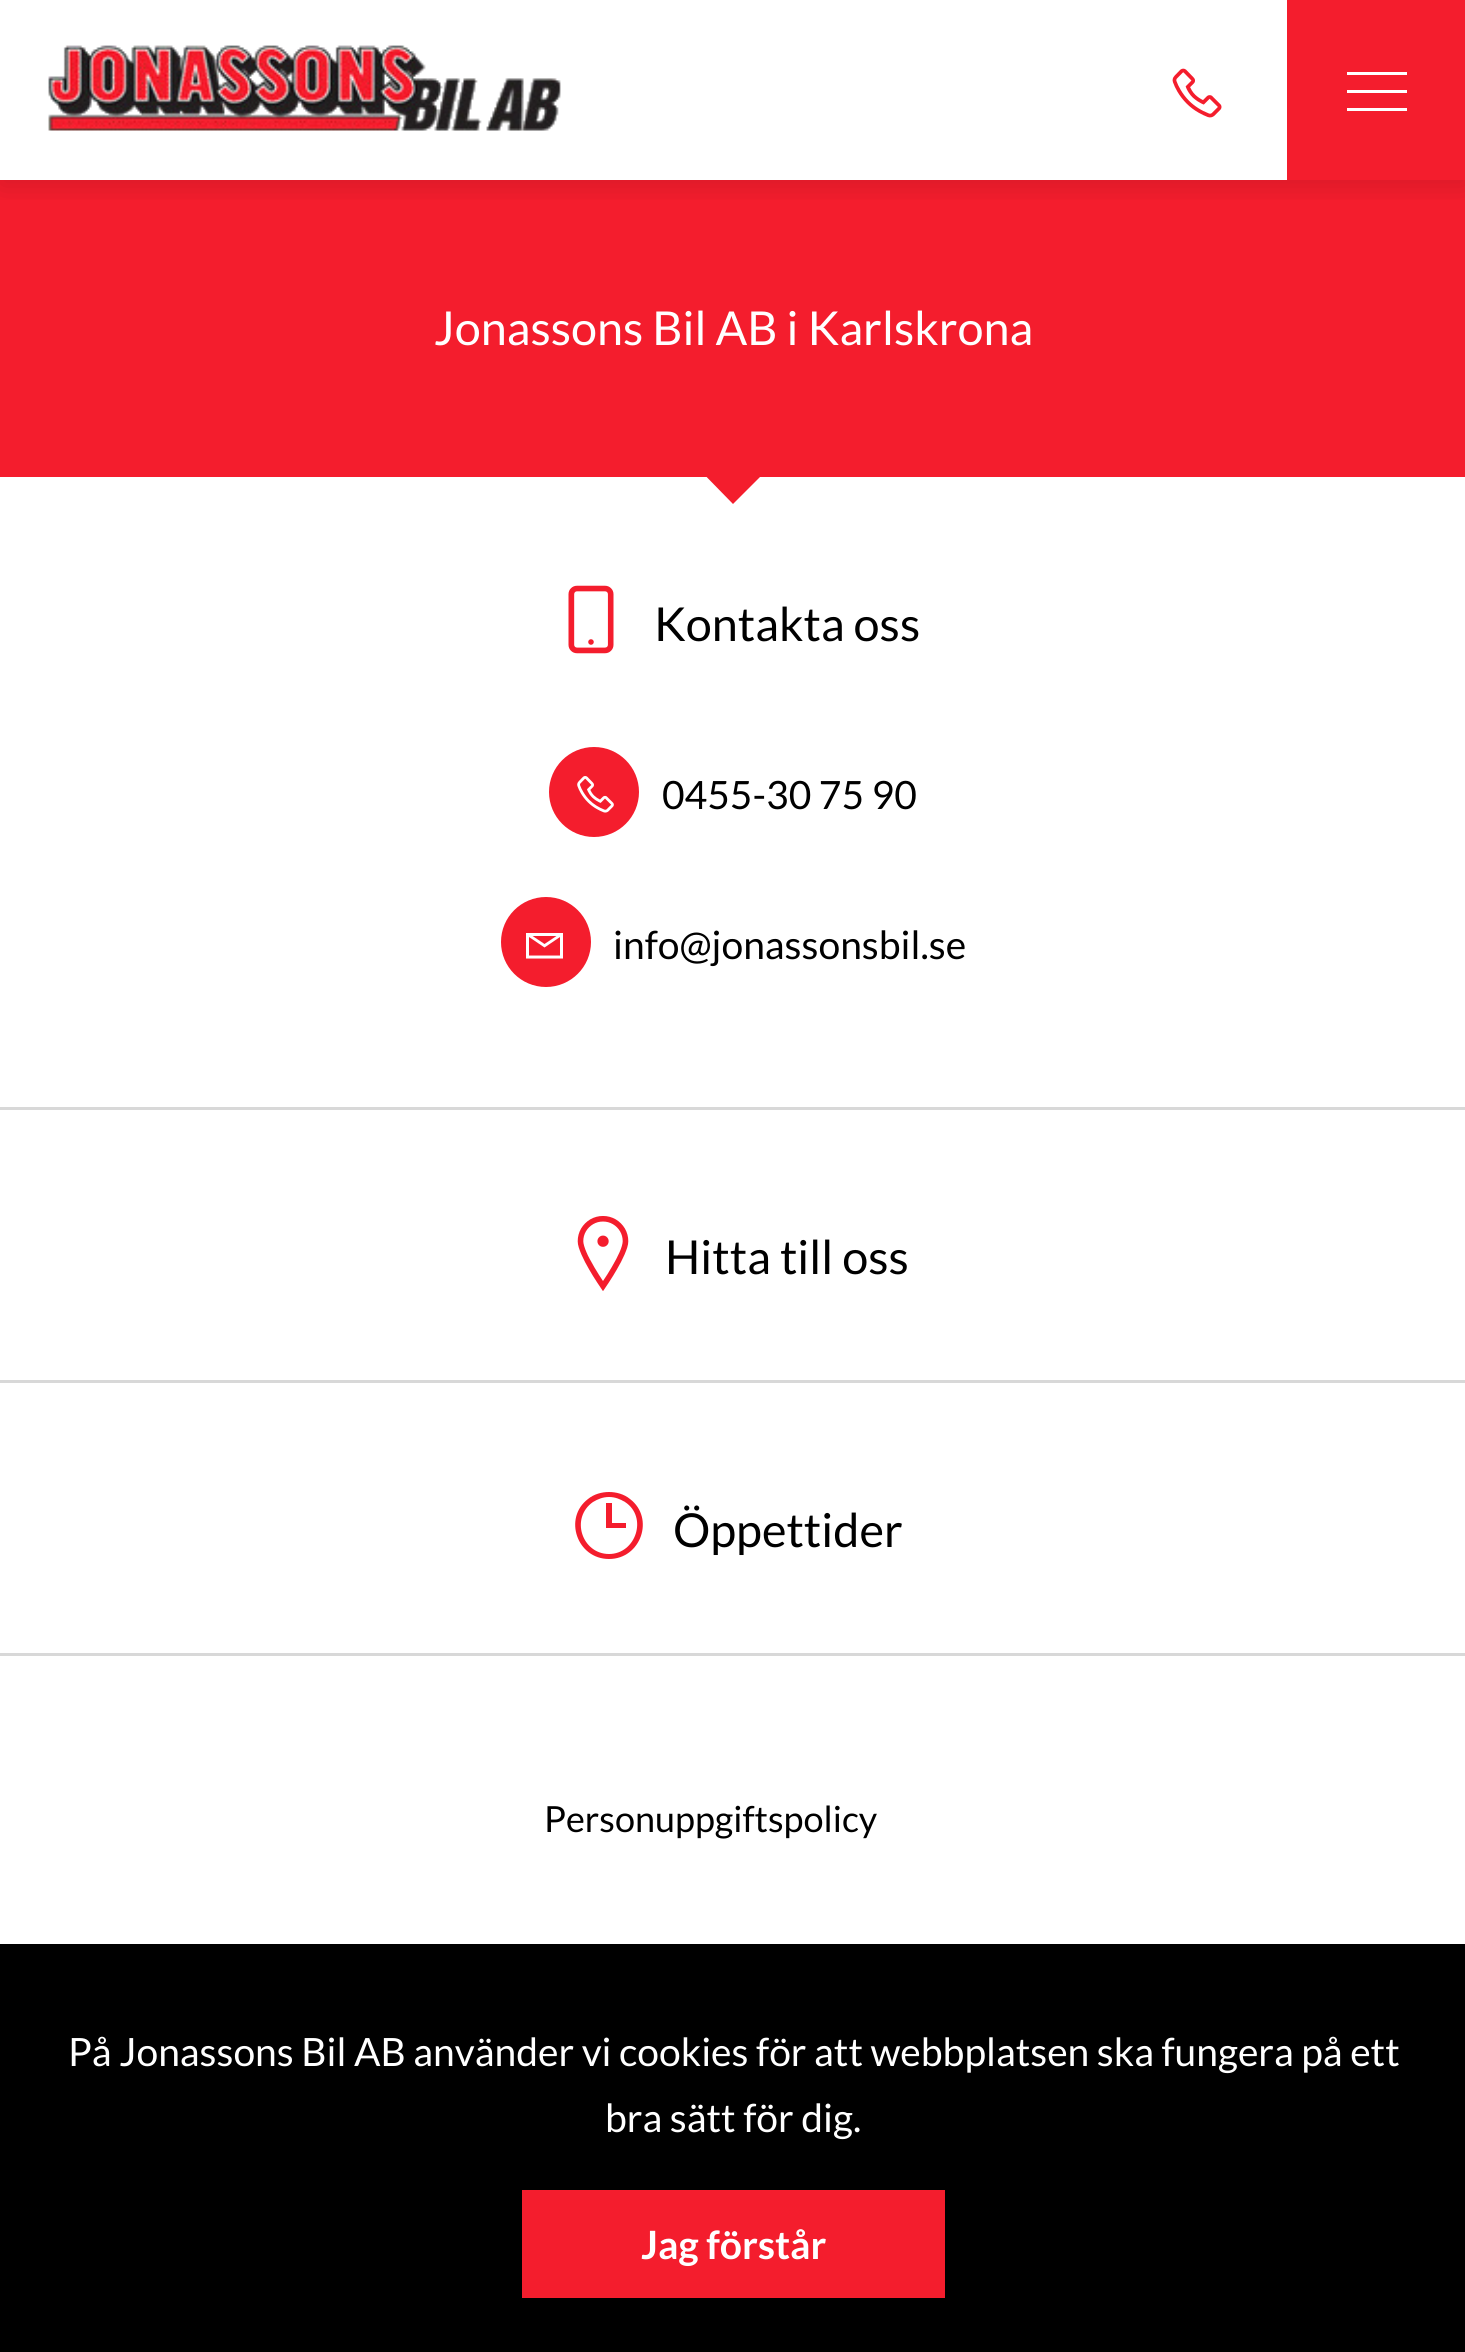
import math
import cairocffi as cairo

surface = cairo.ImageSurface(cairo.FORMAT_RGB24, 1465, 2352)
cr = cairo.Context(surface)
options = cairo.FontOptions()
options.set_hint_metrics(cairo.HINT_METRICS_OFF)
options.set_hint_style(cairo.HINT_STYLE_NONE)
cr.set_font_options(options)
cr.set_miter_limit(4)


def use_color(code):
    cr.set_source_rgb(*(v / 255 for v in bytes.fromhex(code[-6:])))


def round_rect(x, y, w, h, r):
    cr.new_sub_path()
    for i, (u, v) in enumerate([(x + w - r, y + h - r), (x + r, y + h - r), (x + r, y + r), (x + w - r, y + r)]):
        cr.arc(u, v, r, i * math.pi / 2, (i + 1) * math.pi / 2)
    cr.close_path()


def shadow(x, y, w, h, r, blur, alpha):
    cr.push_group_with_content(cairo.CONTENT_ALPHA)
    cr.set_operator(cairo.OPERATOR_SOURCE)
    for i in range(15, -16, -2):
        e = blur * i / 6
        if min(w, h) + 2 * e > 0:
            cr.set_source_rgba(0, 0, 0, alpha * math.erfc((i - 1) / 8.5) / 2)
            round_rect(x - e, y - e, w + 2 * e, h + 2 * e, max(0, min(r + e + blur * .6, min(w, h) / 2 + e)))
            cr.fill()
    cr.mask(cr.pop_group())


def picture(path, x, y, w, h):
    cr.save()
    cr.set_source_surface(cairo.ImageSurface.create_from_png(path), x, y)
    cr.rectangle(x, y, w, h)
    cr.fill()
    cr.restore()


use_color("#ffffff")
cr.paint()
use_color("#f41d2d")
cr.rectangle(0, 180, 1465, 297)
cr.fill()
cr.save()
cr.rectangle(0, 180, 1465, 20)
cr.clip()
use_color("#000000")
shadow(0, 6, 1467, 180, 0, 15, 0.12)
cr.restore()
picture("img1.png", 48, 45, 513, 86)
picture("img2.png", 1172, 68, 50, 50)
cr.rectangle(1287, 0, 178, 180)
cr.fill()
use_color("#ffffff")
cr.rectangle(1347, 72, 60, 3)
cr.fill()
cr.rectangle(1347, 90, 60, 3)
cr.fill()
cr.rectangle(1347, 108, 60, 3)
cr.fill()
cr.select_font_face("Lato")
cr.set_font_size(46.75)
cr.move_to(434, 345)
cr.show_text("Jonassons Bil AB i Karlskrona")
use_color("#f41d2d")
cr.new_path()
cr.move_to(733, 504)
cr.line_to(691, 461)
cr.line_to(733, 419)
cr.line_to(776, 461)
cr.close_path()
cr.fill()
use_color("#d8d8d8")
cr.rectangle(0, 1653, 1465, 3)
cr.fill()
cr.rectangle(0, 1107, 1465, 3)
cr.fill()
picture("img3.png", 568, 585, 46, 69)
use_color("#000000")
cr.move_to(654, 641)
cr.show_text("Kontakta oss")
use_color("#f41d2d")
cr.new_path()
cr.arc(594, 792, 42, 0, 2 * math.pi)
cr.fill_preserve()
cr.set_line_width(6)
cr.stroke()
picture("img4.png", 577, 776, 37, 37)
cr.set_font_size(39)
use_color("#000000")
cr.move_to(662, 809)
cr.show_text("0455-30 75 90")
use_color("#f41d2d")
cr.new_path()
cr.arc(546, 942, 42, 0, 2 * math.pi)
cr.fill_preserve()
cr.stroke()
use_color("#ffffff")
cr.new_path()
cr.move_to(526, 933)
cr.line_to(563, 933)
cr.line_to(563, 958.5)
cr.line_to(526, 958.5)
cr.close_path()
cr.move_to(532.5, 936)
cr.line_to(544.5, 944)
cr.line_to(556.5, 936)
cr.close_path()
cr.move_to(529, 937)
cr.line_to(529, 955.5)
cr.line_to(560, 955.5)
cr.line_to(560, 937)
cr.line_to(544.5, 947.5)
cr.close_path()
cr.fill()
use_color("#000000")
cr.move_to(613, 959)
cr.show_text("info@jonassonsbil.se")
use_color("#d8d8d8")
cr.rectangle(0, 1380, 1465, 3)
cr.fill()
picture("img5.png", 577, 1216, 52, 75)
cr.set_font_size(46.75)
use_color("#000000")
cr.move_to(665, 1274)
cr.show_text("Hitta till oss")
use_color("#f41d2d")
cr.new_path()
cr.move_to(609, 1492)
cr.curve_to(616, 1492, 624, 1494, 630, 1499)
cr.curve_to(655, 1518, 641, 1559, 609, 1559)
cr.curve_to(577, 1559, 563, 1518, 588, 1499)
cr.curve_to(594, 1494, 602, 1492, 609, 1492)
cr.close_path()
cr.move_to(609, 1497)
cr.curve_to(603, 1497, 598, 1499, 593, 1502)
cr.curve_to(570, 1518, 582, 1554, 609, 1554)
cr.curve_to(636, 1554, 648, 1517, 625, 1502)
cr.curve_to(620, 1499, 615, 1497, 609, 1497)
cr.close_path()
cr.move_to(606, 1503)
cr.line_to(612, 1503)
cr.line_to(612, 1523)
cr.line_to(626, 1523)
cr.line_to(626, 1528)
cr.line_to(606, 1528)
cr.close_path()
cr.fill()
use_color("#000000")
cr.move_to(673, 1547)
cr.show_text("Öppettider")
cr.set_font_size(36)
cr.move_to(544, 1832)
cr.show_text("Personuppgiftspolicy")
cr.rectangle(0, 1944, 1465, 408)
cr.fill()
cr.set_font_size(39)
use_color("#ffffff")
cr.move_to(68, 2066)
cr.show_text("På Jonassons Bil AB använder vi cookies för att webbplatsen ska fungera på ett")
cr.move_to(605, 2132)
cr.show_text("bra sätt för dig.")
use_color("#f41d2d")
cr.rectangle(522, 2190, 423, 108)
cr.fill()
cr.select_font_face("Lato", cairo.FONT_SLANT_NORMAL, cairo.FONT_WEIGHT_BOLD)
use_color("#ffffff")
cr.move_to(641, 2259)
cr.show_text("Jag förstår")
surface.write_to_png("result.png")
